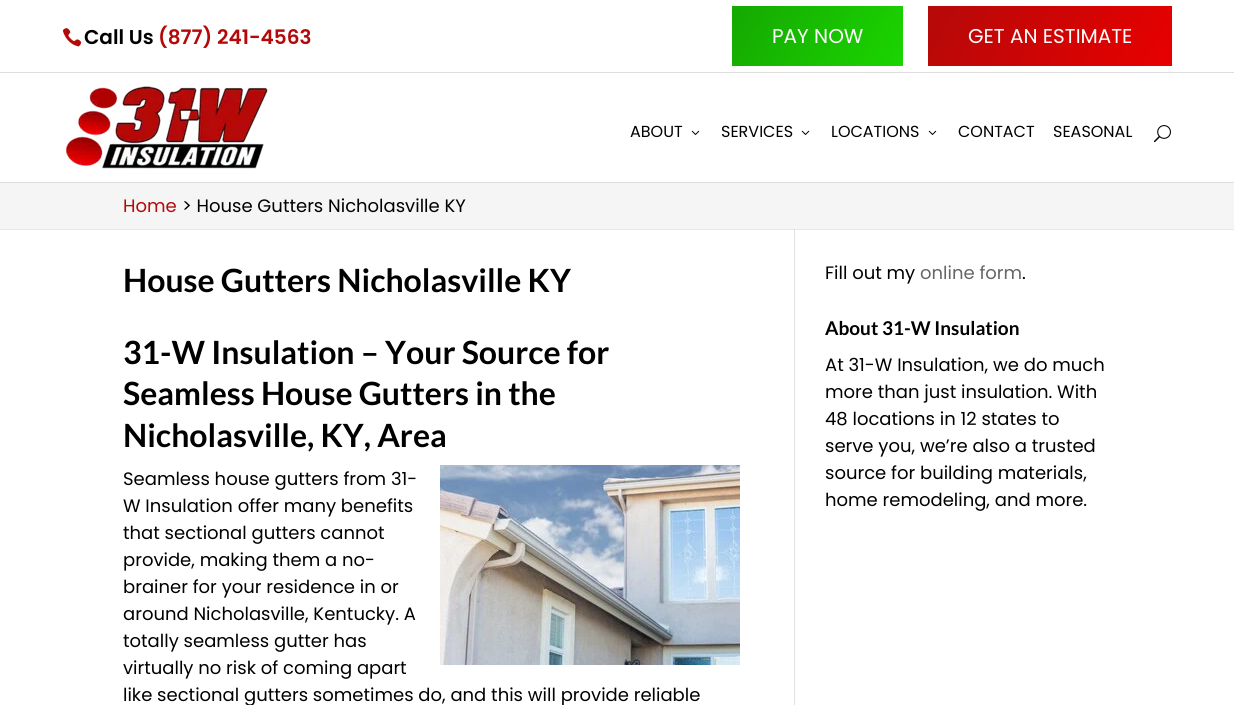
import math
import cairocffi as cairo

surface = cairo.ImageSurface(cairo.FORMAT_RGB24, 1234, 705)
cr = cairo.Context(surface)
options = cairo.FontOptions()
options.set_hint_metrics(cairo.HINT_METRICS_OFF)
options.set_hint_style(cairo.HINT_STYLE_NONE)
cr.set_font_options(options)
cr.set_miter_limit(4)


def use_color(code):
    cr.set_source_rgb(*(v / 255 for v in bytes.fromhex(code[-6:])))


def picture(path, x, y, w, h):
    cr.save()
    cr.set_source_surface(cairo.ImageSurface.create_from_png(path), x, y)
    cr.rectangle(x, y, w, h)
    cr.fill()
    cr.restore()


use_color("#ffffff")
cr.paint()
use_color("#dddddd")
cr.rectangle(0, 72, 1234, 1)
cr.fill()
picture("img1.png", 62, 28, 20, 19)
cr.select_font_face("Poppins SemiBold")
cr.set_font_size(20)
use_color("#000000")
cr.move_to(84, 44)
cr.show_text("Call Us")
use_color("#b50909")
cr.move_to(158, 44)
cr.show_text("(877) 241-4563")
gradient = cairo.LinearGradient(749, -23, 1057, 155)
gradient.add_color_stop_rgba(0, 0.082, 0.659, 0.004, 1)
gradient.add_color_stop_rgba(0.5, 0.106, 0.835, 0, 1)
gradient.add_color_stop_rgba(1, 0.082, 0.659, 0.004, 1)
cr.set_source(gradient)
cr.rectangle(732, 6, 171, 60)
cr.fill()
cr.select_font_face("Poppins")
use_color("#ffffff")
cr.move_to(772, 43)
cr.show_text("PAY NOW")
gradient = cairo.LinearGradient(963, -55, 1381, 187)
gradient.add_color_stop_rgba(0, 0.71, 0.035, 0.035, 1)
gradient.add_color_stop_rgba(0.5, 0.91, 0, 0, 1)
gradient.add_color_stop_rgba(1, 0.71, 0.035, 0.035, 1)
cr.set_source(gradient)
cr.rectangle(928, 6, 244, 60)
cr.fill()
use_color("#ffffff")
cr.move_to(968, 43)
cr.show_text("GET AN ESTIMATE")
use_color("#dddddd")
cr.rectangle(0, 182, 1234, 1)
cr.fill()
picture("img2.png", 66, 86, 202, 83)
cr.set_font_size(16)
use_color("#000000")
cr.move_to(630, 137)
cr.show_text("ABOUT")
picture("img3.png", 691, 130, 9, 5)
cr.move_to(721, 137)
cr.show_text("SERVICES")
picture("img3.png", 801, 130, 9, 5)
cr.move_to(831, 137)
cr.show_text("LOCATIONS")
picture("img3.png", 928, 130, 9, 5)
cr.move_to(958, 137)
cr.show_text("CONTACT")
cr.move_to(1053, 137)
cr.show_text("SEASONAL")
picture("img4.png", 1154, 125, 17, 18)
use_color("#e6e6e6")
cr.rectangle(0, 229, 1234, 1)
cr.fill()
use_color("#f5f5f5")
cr.rectangle(0, 183, 1234, 46)
cr.fill()
cr.set_font_size(18)
use_color("#b50909")
cr.move_to(123, 212)
cr.show_text("Home")
use_color("#000000")
cr.move_to(182, 212)
cr.show_text("> House Gutters Nicholasville KY")
use_color("#e2e2e2")
cr.rectangle(794, 229, 1, 476)
cr.fill()
cr.select_font_face("Lato", cairo.FONT_SLANT_NORMAL, cairo.FONT_WEIGHT_BOLD)
cr.set_font_size(32)
use_color("#000000")
cr.move_to(123, 292)
cr.show_text("House Gutters Nicholasville KY")
cr.move_to(123, 364)
cr.show_text("31-W Insulation – Your Source for")
cr.move_to(123, 405)
cr.show_text("Seamless House Gutters in the")
cr.move_to(123, 447)
cr.show_text("Nicholasville, KY, Area")
cr.select_font_face("Poppins")
cr.set_font_size(18)
cr.move_to(123, 485)
cr.show_text("Seamless house gutters from 31-")
picture("img5.png", 440, 465, 300, 200)
cr.move_to(123, 512)
cr.show_text("W Insulation offer many benefits")
cr.move_to(123, 539)
cr.show_text("that sectional gutters cannot")
cr.move_to(123, 566)
cr.show_text("provide, making them a no-")
cr.move_to(123, 593)
cr.show_text("brainer for your residence in or")
cr.move_to(123, 620)
cr.show_text("around Nicholasville, Kentucky. A")
cr.move_to(123, 647)
cr.show_text("totally seamless gutter has")
cr.move_to(123, 674)
cr.show_text("virtually no risk of coming apart")
cr.move_to(123, 701)
cr.show_text("like sectional gutters sometimes do, and this will provide reliable")
cr.move_to(825, 279)
cr.show_text("Fill out my")
use_color("#666666")
cr.move_to(920, 279)
cr.show_text("online form")
use_color("#000000")
cr.move_to(1022, 279)
cr.show_text(".")
cr.select_font_face("Lato", cairo.FONT_SLANT_NORMAL, cairo.FONT_WEIGHT_BOLD)
cr.set_font_size(19)
cr.move_to(825, 335)
cr.show_text("About 31-W Insulation")
cr.select_font_face("Poppins")
cr.set_font_size(18)
cr.move_to(825, 371)
cr.show_text("At 31-W Insulation, we do much")
cr.move_to(825, 398)
cr.show_text("more than just insulation. With")
cr.move_to(825, 425)
cr.show_text("48 locations in 12 states to")
cr.move_to(825, 452)
cr.show_text("serve you, we’re also a trusted")
cr.move_to(825, 479)
cr.show_text("source for building materials,")
cr.move_to(825, 506)
cr.show_text("home remodeling, and more.")
surface.write_to_png("result.png")
